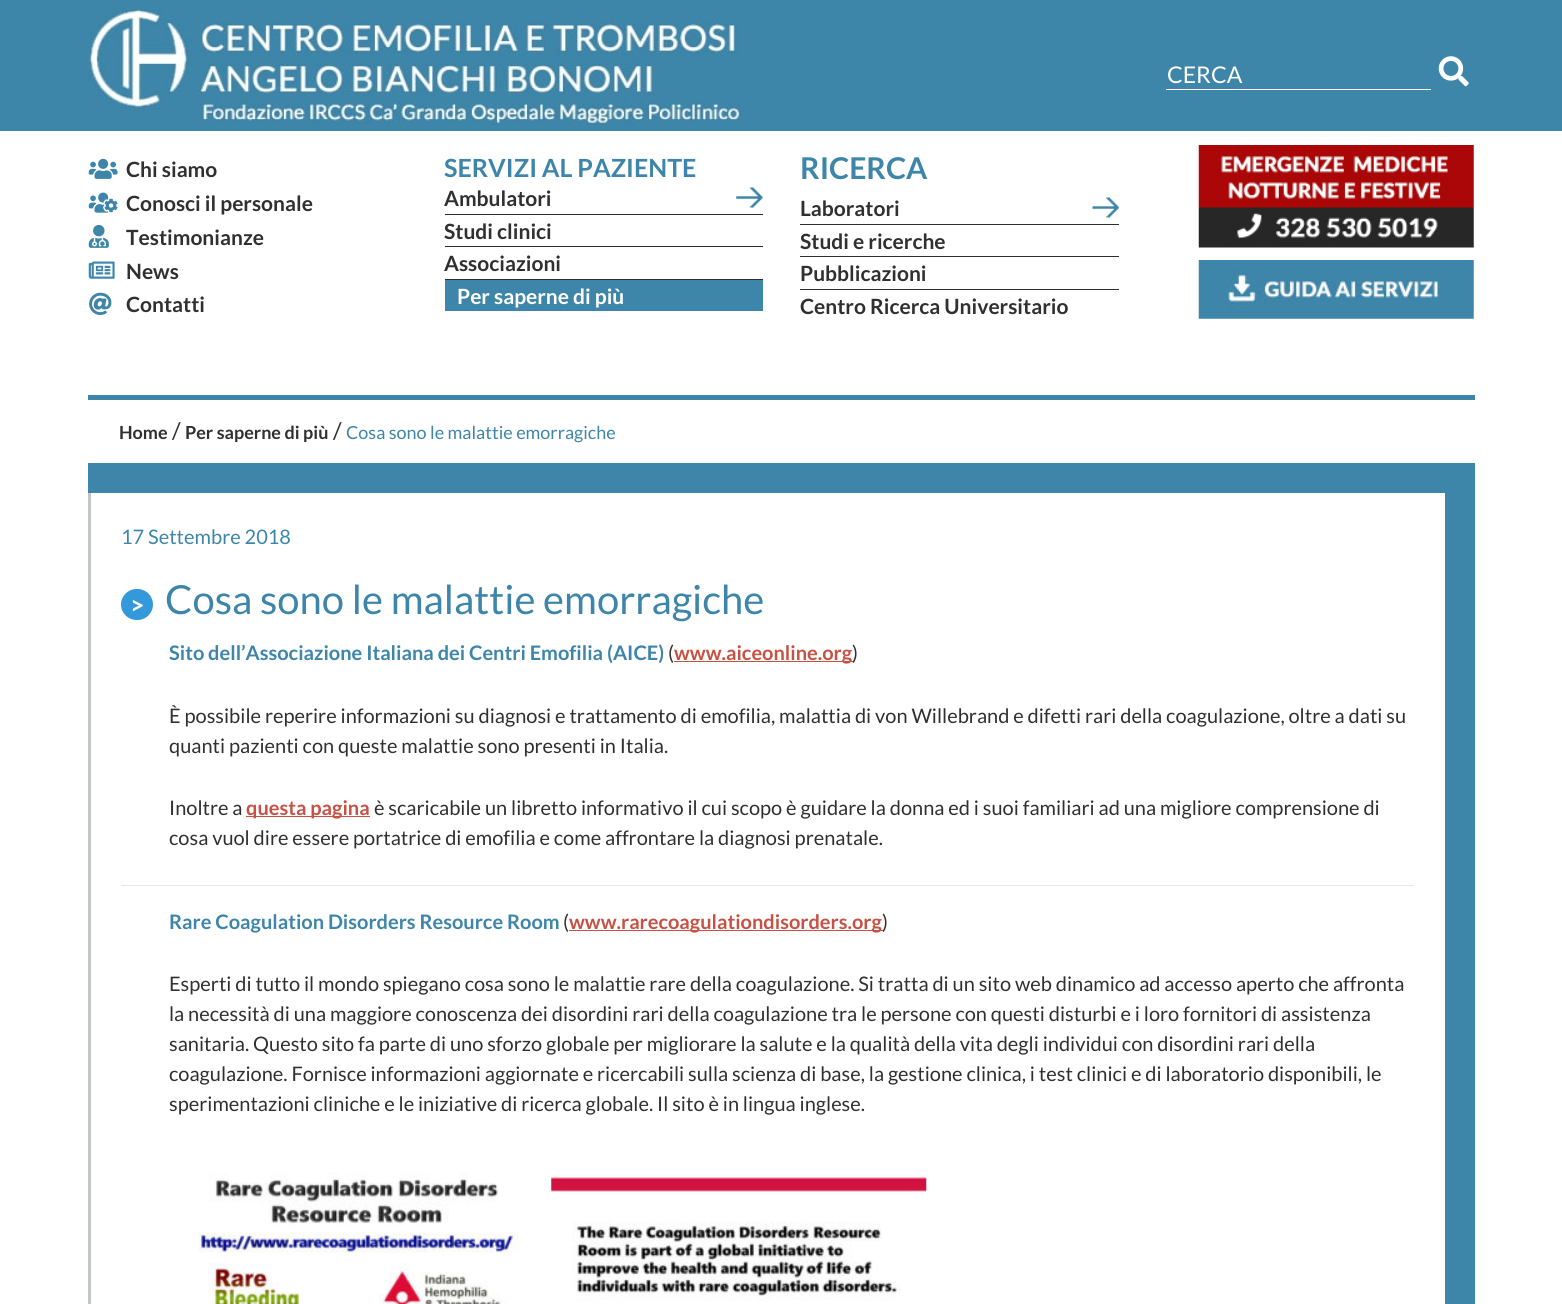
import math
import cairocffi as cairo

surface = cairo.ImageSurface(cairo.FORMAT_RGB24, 1562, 1304)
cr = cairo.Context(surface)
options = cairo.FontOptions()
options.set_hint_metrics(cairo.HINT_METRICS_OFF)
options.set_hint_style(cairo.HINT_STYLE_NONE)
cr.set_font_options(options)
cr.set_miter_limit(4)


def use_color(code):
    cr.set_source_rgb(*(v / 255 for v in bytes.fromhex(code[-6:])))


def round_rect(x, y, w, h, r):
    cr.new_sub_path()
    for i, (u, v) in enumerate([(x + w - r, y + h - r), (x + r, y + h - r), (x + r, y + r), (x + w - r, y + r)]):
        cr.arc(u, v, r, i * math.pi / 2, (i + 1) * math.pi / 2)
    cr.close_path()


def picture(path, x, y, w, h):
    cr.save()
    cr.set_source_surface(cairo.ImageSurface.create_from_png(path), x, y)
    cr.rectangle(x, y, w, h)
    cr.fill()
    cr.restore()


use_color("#ffffff")
cr.paint()
use_color("#3d85a9")
cr.rectangle(0, 0, 1562, 131)
cr.fill()
picture("img1.png", 87, 6, 654, 119)
use_color("#ffffff")
cr.rectangle(1166, 89, 265, 1)
cr.fill()
cr.select_font_face("Lato")
cr.set_font_size(23)
cr.move_to(1167, 83)
cr.show_text("CERCA")
picture("img2.png", 1438, 56, 31, 31)
picture("img3.png", 88, 158, 30, 21)
cr.select_font_face("Lato", cairo.FONT_SLANT_NORMAL, cairo.FONT_WEIGHT_BOLD)
cr.set_font_size(21)
use_color("#303030")
cr.move_to(126, 177)
cr.show_text("Chi siamo")
picture("img4.png", 88, 192, 30, 21)
cr.move_to(126, 211)
cr.show_text("Conosci il personale")
picture("img5.png", 88, 224, 21, 24)
cr.move_to(126, 245)
cr.show_text("Testimonianze")
picture("img6.png", 88, 261, 27, 18)
cr.move_to(126, 279)
cr.show_text("News")
picture("img7.png", 89, 292, 23, 23)
cr.move_to(126, 312)
cr.show_text("Contatti")
cr.set_font_size(25)
use_color("#3d85a9")
cr.move_to(444, 177)
cr.show_text("SERVIZI AL PAZIENTE")
picture("img8.png", 736, 187, 27, 21)
use_color("#303030")
cr.rectangle(445, 214, 318, 1)
cr.fill()
cr.set_font_size(21)
cr.move_to(444, 206)
cr.show_text("Ambulatori")
cr.rectangle(445, 246, 318, 1)
cr.fill()
cr.move_to(444, 239)
cr.show_text("Studi clinici")
cr.rectangle(445, 279, 318, 1)
cr.fill()
cr.move_to(444, 271)
cr.show_text("Associazioni")
use_color("#3d85a9")
cr.rectangle(445, 280, 318, 31)
cr.fill()
use_color("#ffffff")
cr.move_to(457, 304)
cr.show_text("Per saperne di più")
cr.set_font_size(30)
use_color("#3d85a9")
cr.move_to(800, 179)
cr.show_text("RICERCA")
picture("img9.png", 1092, 197, 27, 21)
use_color("#303030")
cr.rectangle(800, 224, 319, 1)
cr.fill()
cr.set_font_size(21)
cr.move_to(800, 216)
cr.show_text("Laboratori")
cr.rectangle(800, 256, 319, 1)
cr.fill()
cr.move_to(800, 249)
cr.show_text("Studi e ricerche")
cr.rectangle(800, 289, 319, 1)
cr.fill()
cr.move_to(800, 281)
cr.show_text("Pubblicazioni")
cr.move_to(800, 314)
cr.show_text("Centro Ricerca Universitario")
picture("img10.png", 1198, 145, 276, 103)
picture("img11.png", 1198, 260, 276, 59)
use_color("#3d85a9")
cr.rectangle(88, 395, 1387, 5)
cr.fill()
cr.rectangle(88, 463, 1387, 30)
cr.fill()
cr.set_font_size(18)
use_color("#303030")
cr.move_to(119, 439)
cr.show_text("Home")
cr.select_font_face("Lato")
cr.set_font_size(23)
cr.move_to(172, 439)
cr.show_text("/")
cr.select_font_face("Lato", cairo.FONT_SLANT_NORMAL, cairo.FONT_WEIGHT_BOLD)
cr.set_font_size(18)
cr.move_to(185, 439)
cr.show_text("Per saperne di più")
cr.select_font_face("Lato")
cr.set_font_size(23)
cr.move_to(333, 439)
cr.show_text("/")
cr.set_font_size(18)
use_color("#3d85a9")
cr.move_to(346, 439)
cr.show_text("Cosa sono le malattie emorragiche")
cr.rectangle(1445, 493, 30, 811)
cr.fill()
use_color("#c3c6c9")
cr.rectangle(88, 493, 3, 811)
cr.fill()
cr.set_font_size(20)
use_color("#3d85a9")
cr.move_to(121, 544)
cr.show_text("17 Settembre 2018")
use_color("#3499da")
round_rect(121, 589, 32, 31, 15.5)
cr.fill()
cr.select_font_face("Lato", cairo.FONT_SLANT_NORMAL, cairo.FONT_WEIGHT_BOLD)
cr.set_font_size(25)
use_color("#ffffff")
cr.move_to(130, 614)
cr.show_text(">")
cr.select_font_face("Lato")
cr.set_font_size(40)
use_color("#3d85a9")
cr.move_to(165, 614)
cr.show_text("Cosa sono le malattie emorragiche")
cr.select_font_face("Lato", cairo.FONT_SLANT_NORMAL, cairo.FONT_WEIGHT_BOLD)
cr.set_font_size(20)
cr.move_to(169, 660)
cr.show_text("Sito dell’Associazione Italiana dei Centri Emofilia (AICE)")
cr.select_font_face("Lato")
use_color("#303030")
cr.move_to(668, 660)
cr.show_text("(")
use_color("#c75143")
cr.rectangle(674, 661, 179, 1)
cr.fill()
cr.select_font_face("Lato", cairo.FONT_SLANT_NORMAL, cairo.FONT_WEIGHT_BOLD)
cr.move_to(674, 660)
cr.show_text("www.aiceonline.org")
cr.select_font_face("Lato")
use_color("#303030")
cr.move_to(852, 660)
cr.show_text(")")
cr.move_to(169, 723)
cr.show_text("È possibile reperire informazioni su diagnosi e trattamento di emofilia, malattia di von Willebrand e difetti rari della coagulazione, oltre a dati su")
cr.move_to(169, 753)
cr.show_text("quanti pazienti con queste malattie sono presenti in Italia.")
cr.move_to(169, 815)
cr.show_text("Inoltre a")
use_color("#c75143")
cr.rectangle(246, 816, 124, 1)
cr.fill()
cr.select_font_face("Lato", cairo.FONT_SLANT_NORMAL, cairo.FONT_WEIGHT_BOLD)
cr.move_to(246, 815)
cr.show_text("questa pagina")
cr.select_font_face("Lato")
use_color("#303030")
cr.move_to(374, 815)
cr.show_text("è scaricabile un libretto informativo il cui scopo è guidare la donna ed i suoi familiari ad una migliore comprensione di")
cr.move_to(169, 845)
cr.show_text("cosa vuol dire essere portatrice di emofilia e come affrontare la diagnosi prenatale.")
use_color("#e6e6e6")
cr.rectangle(121, 885, 1293, 1)
cr.fill()
cr.select_font_face("Lato", cairo.FONT_SLANT_NORMAL, cairo.FONT_WEIGHT_BOLD)
use_color("#3d85a9")
cr.move_to(169, 929)
cr.show_text("Rare Coagulation Disorders Resource Room")
cr.select_font_face("Lato")
use_color("#303030")
cr.move_to(563, 929)
cr.show_text("(")
use_color("#c75143")
cr.rectangle(569, 930, 314, 1)
cr.fill()
cr.select_font_face("Lato", cairo.FONT_SLANT_NORMAL, cairo.FONT_WEIGHT_BOLD)
cr.move_to(569, 929)
cr.show_text("www.rarecoagulationdisorders.org")
cr.select_font_face("Lato")
use_color("#303030")
cr.move_to(882, 929)
cr.show_text(")")
cr.move_to(169, 991)
cr.show_text("Esperti di tutto il mondo spiegano cosa sono le malattie rare della coagulazione. Si tratta di un sito web dinamico ad accesso aperto che affronta")
cr.move_to(169, 1021)
cr.show_text("la necessità di una maggiore conoscenza dei disordini rari della coagulazione tra le persone con questi disturbi e i loro fornitori di assistenza")
cr.move_to(169, 1051)
cr.show_text("sanitaria. Questo sito fa parte di uno sforzo globale per migliorare la salute e la qualità della vita degli individui con disordini rari della")
cr.move_to(169, 1081)
cr.show_text("coagulazione. Fornisce informazioni aggiornate e ricercabili sulla scienza di base, la gestione clinica, i test clinici e di laboratorio disponibili, le")
cr.move_to(169, 1111)
cr.show_text("sperimentazioni cliniche e le iniziative di ricerca globale. Il sito è in lingua inglese.")
picture("img12.png", 198, 1172, 321, 132)
picture("img13.png", 551, 1175, 376, 126)
surface.write_to_png("result.png")
